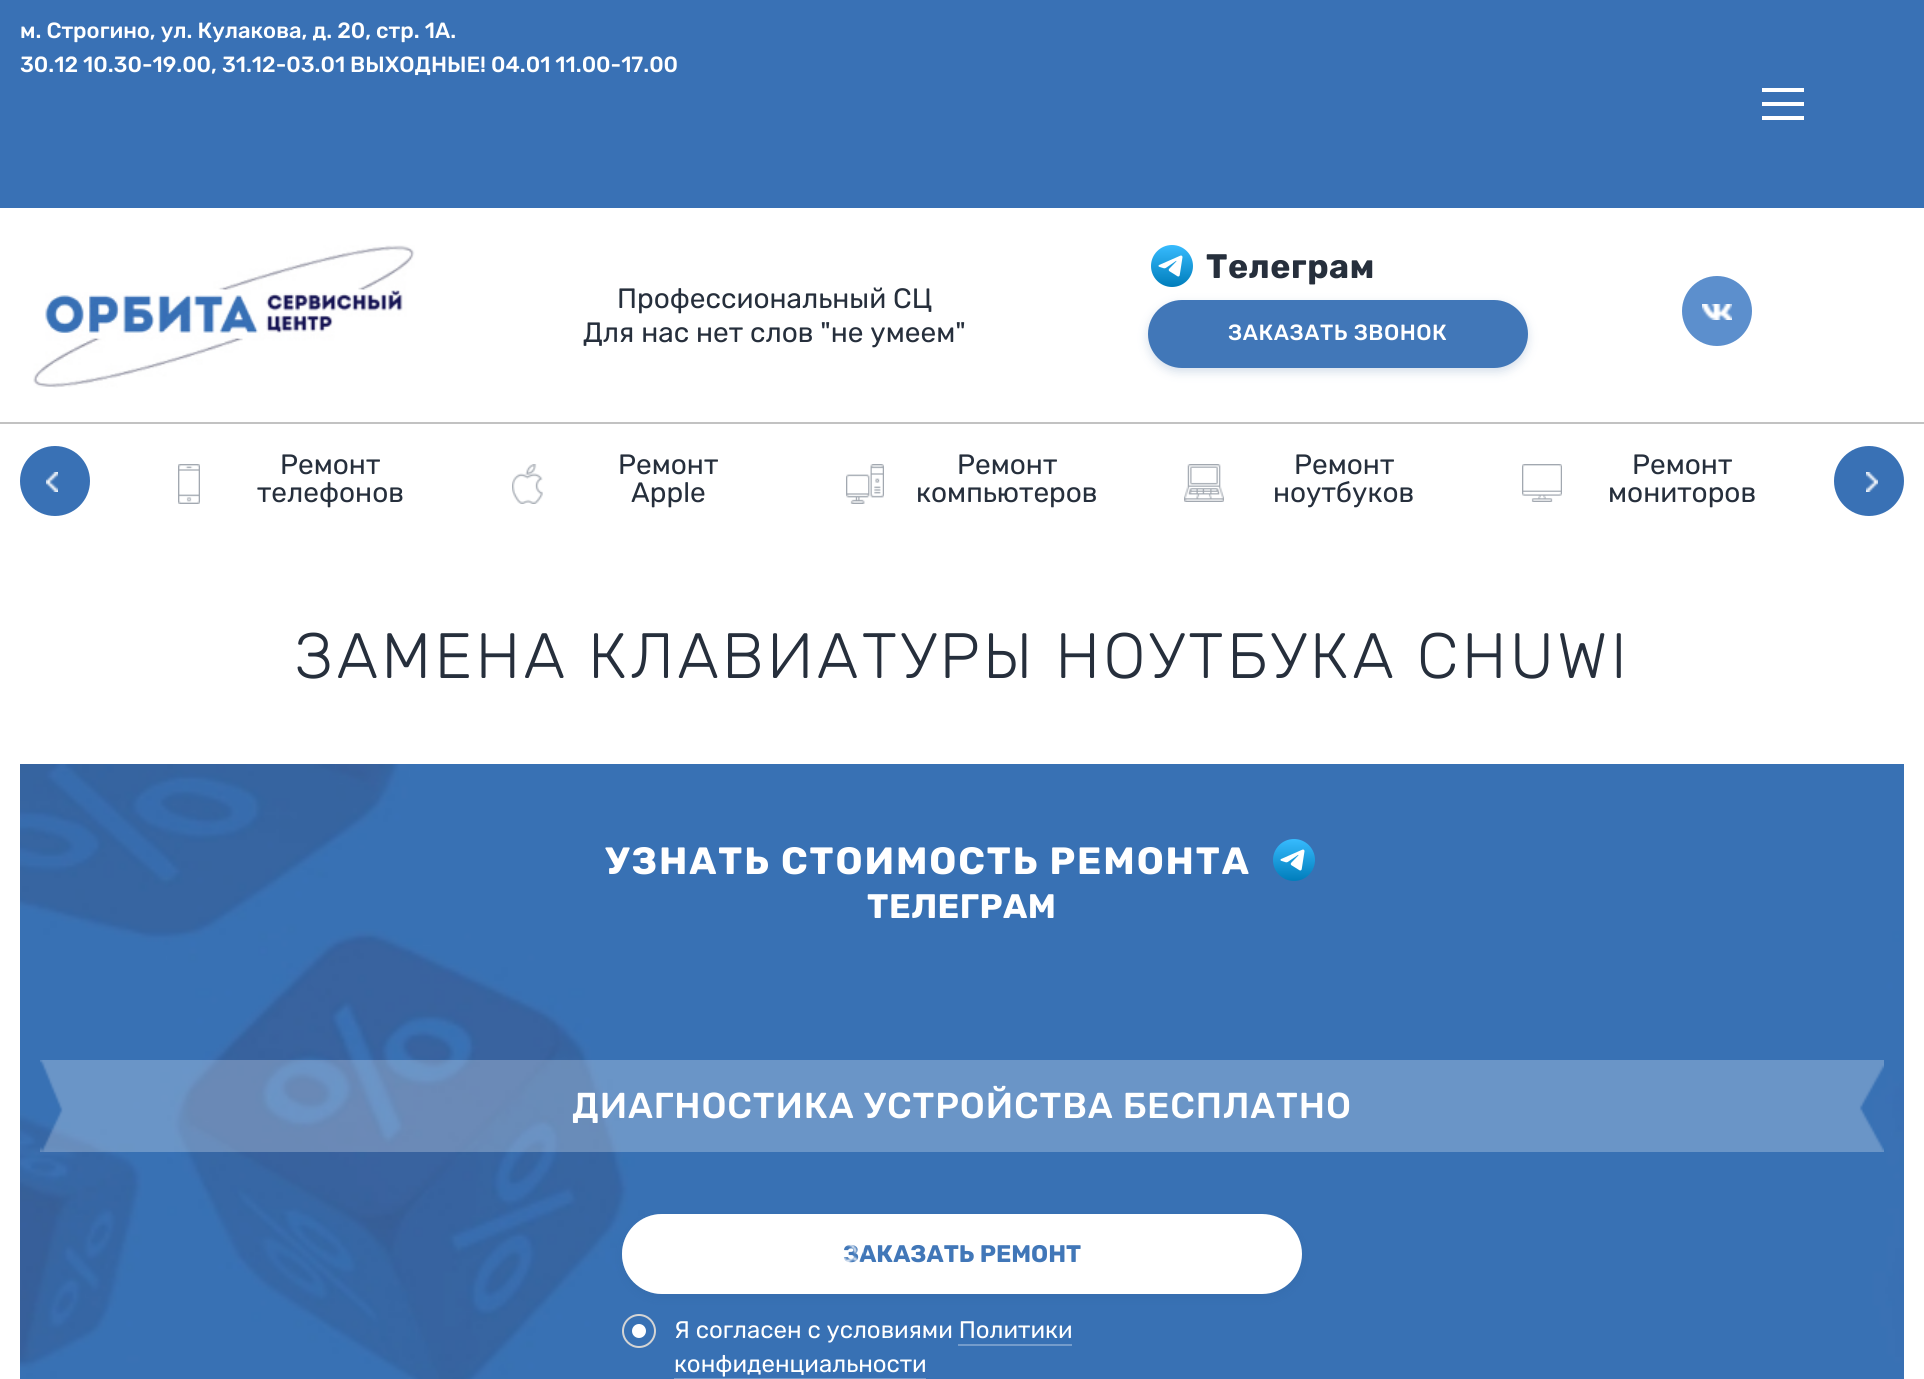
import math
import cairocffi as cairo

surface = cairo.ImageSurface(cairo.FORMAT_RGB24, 1924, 1379)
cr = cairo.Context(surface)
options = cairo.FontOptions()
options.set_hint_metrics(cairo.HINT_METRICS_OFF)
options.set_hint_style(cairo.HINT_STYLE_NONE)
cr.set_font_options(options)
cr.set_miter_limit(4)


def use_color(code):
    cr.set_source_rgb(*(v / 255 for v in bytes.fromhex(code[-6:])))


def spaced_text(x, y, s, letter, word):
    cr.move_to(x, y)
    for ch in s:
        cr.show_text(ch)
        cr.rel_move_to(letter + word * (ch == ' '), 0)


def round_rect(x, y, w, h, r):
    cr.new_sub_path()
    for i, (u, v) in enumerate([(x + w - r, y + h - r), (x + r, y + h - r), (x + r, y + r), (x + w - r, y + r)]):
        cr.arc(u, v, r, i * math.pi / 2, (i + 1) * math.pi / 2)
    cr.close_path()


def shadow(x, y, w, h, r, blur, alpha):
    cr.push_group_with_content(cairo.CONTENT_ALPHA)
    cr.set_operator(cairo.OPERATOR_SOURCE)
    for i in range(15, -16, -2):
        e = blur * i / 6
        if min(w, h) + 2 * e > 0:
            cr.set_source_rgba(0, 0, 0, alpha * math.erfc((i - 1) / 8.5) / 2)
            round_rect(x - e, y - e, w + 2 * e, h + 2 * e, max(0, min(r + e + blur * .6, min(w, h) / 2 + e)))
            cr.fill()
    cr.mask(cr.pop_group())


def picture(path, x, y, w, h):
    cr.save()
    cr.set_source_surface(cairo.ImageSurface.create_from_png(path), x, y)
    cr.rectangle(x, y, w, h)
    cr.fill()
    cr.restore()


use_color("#ffffff")
cr.paint()
use_color("#3971b5")
cr.rectangle(0, 0, 1924, 208)
cr.fill()
cr.select_font_face("Rubik Medium")
cr.set_font_size(22)
use_color("#ffffff")
cr.move_to(20, 38)
cr.show_text("м. Строгино, ул. Кулакова, д. 20, стр. 1А.")
cr.move_to(20, 72)
cr.show_text("30.12 10.30-19.00, 31.12-03.01 ВЫХОДНЫЕ! 04.01 11.00-17.00")
cr.rectangle(1762, 88, 42, 4)
cr.fill()
cr.rectangle(1762, 116, 42, 4)
cr.fill()
cr.rectangle(1762, 102, 42, 4)
cr.fill()
picture("img1.png", 33, 245, 382, 143)
cr.select_font_face("Rubik")
cr.set_font_size(28)
use_color("#262f3c")
cr.move_to(617, 308)
cr.show_text("Профессиональный СЦ")
cr.move_to(583, 342)
cr.show_text("Для нас нет слов \"не умеем\"")
picture("img2.png", 1151, 245, 42, 42)
cr.select_font_face("Rubik", cairo.FONT_SLANT_NORMAL, cairo.FONT_WEIGHT_BOLD)
cr.set_font_size(34)
spaced_text(1206, 278, "Телеграм", 0.5, 0)
use_color("#2c5d97")
shadow(1148, 304, 380, 68, 34, 5, 0.2)
use_color("#4177b8")
round_rect(1148, 300, 380, 68, 34)
cr.fill()
cr.select_font_face("Rubik Medium")
cr.set_font_size(22)
use_color("#ffffff")
spaced_text(1228, 340, "ЗАКАЗАТЬ ЗВОНОК", 0.5, 0)
use_color("#5c8fcd")
cr.new_path()
cr.arc(1717, 311, 35, 0, 2 * math.pi)
cr.fill()
picture("img3.png", 1702, 304, 30, 16)
use_color("#c2c2c2")
cr.rectangle(0, 422, 1924, 2)
cr.fill()
use_color("#3971b5")
cr.arc(55, 481, 35, 0, 2 * math.pi)
cr.fill()
picture("img4.png", 46, 472, 12, 20)
picture("img5.png", 178, 464, 22, 40)
cr.select_font_face("Rubik")
cr.set_font_size(28)
use_color("#262f3c")
cr.move_to(280, 474)
cr.show_text("Ремонт")
cr.move_to(257, 502)
cr.show_text("телефонов")
picture("img6.png", 512, 464, 31, 40)
cr.move_to(618, 474)
cr.show_text("Ремонт")
cr.move_to(631, 502)
cr.show_text("Apple")
picture("img7.png", 846, 464, 38, 40)
cr.move_to(957, 474)
cr.show_text("Ремонт")
cr.move_to(916, 502)
cr.show_text("компьютеров")
picture("img8.png", 1184, 464, 40, 38)
cr.move_to(1294, 474)
cr.show_text("Ремонт")
cr.move_to(1273, 502)
cr.show_text("ноутбуков")
picture("img9.png", 1522, 464, 40, 38)
cr.move_to(1632, 474)
cr.show_text("Ремонт")
cr.move_to(1608, 502)
cr.show_text("мониторов")
use_color("#3971b5")
cr.new_path()
cr.arc(1869, 481, 35, 0, 2 * math.pi)
cr.fill()
picture("img10.png", 1866, 472, 12, 20)
cr.select_font_face("Rubik Light")
cr.set_font_size(64)
use_color("#262f3c")
spaced_text(295, 678, "ЗАМЕНА КЛАВИАТУРЫ НОУТБУКА CHUWI", 3.2, 0)
picture("img11.png", 20, 764, 1884, 615)
cr.select_font_face("Rubik", cairo.FONT_SLANT_NORMAL, cairo.FONT_WEIGHT_BOLD)
cr.set_font_size(38)
use_color("#ffffff")
spaced_text(605, 874, "УЗНАТЬ СТОИМОСТЬ РЕМОНТА", 1.9, 0)
picture("img12.png", 1273, 839, 42, 42)
cr.set_font_size(34)
spaced_text(867, 918, "ТЕЛЕГРАМ", 0.5, 0)
picture("img13.png", 40, 1060, 1844, 92)
cr.select_font_face("Rubik Medium")
cr.set_font_size(36)
spaced_text(572, 1118, "ДИАГНОСТИКА УСТРОЙСТВА БЕСПЛАТНО", 0.9, 0)
round_rect(623, 1215, 116, 78, 39)
cr.set_source_rgba(1, 1, 1, 0.4)
cr.stroke()
use_color("#2c5d97")
shadow(622, 1218, 680, 80, 40, 5, 0.2)
use_color("#ffffff")
round_rect(622, 1214, 680, 80, 40)
cr.fill()
cr.select_font_face("Rubik", cairo.FONT_SLANT_NORMAL, cairo.FONT_WEIGHT_BOLD)
cr.set_font_size(24)
use_color("#4177b8")
cr.move_to(843, 1262)
cr.show_text("ЗАКАЗАТЬ РЕМОНТ")
picture("img14.png", 843, 1245, 21, 18)
cr.arc(639, 1331, 16, 0, 2 * math.pi)
use_color("#d4d4d4")
cr.stroke()
use_color("#ffffff")
cr.arc(639, 1331, 7, 0, 2 * math.pi)
cr.fill()
cr.select_font_face("Rubik")
cr.move_to(674, 1338)
cr.show_text("Я согласен с условиями Политики")
cr.move_to(674, 1372)
cr.show_text("конфиденциальности")
use_color("#749ccb")
cr.rectangle(958, 1344, 114, 2)
cr.fill()
cr.rectangle(674, 1378, 252, 1)
cr.fill()
surface.write_to_png("result.png")
